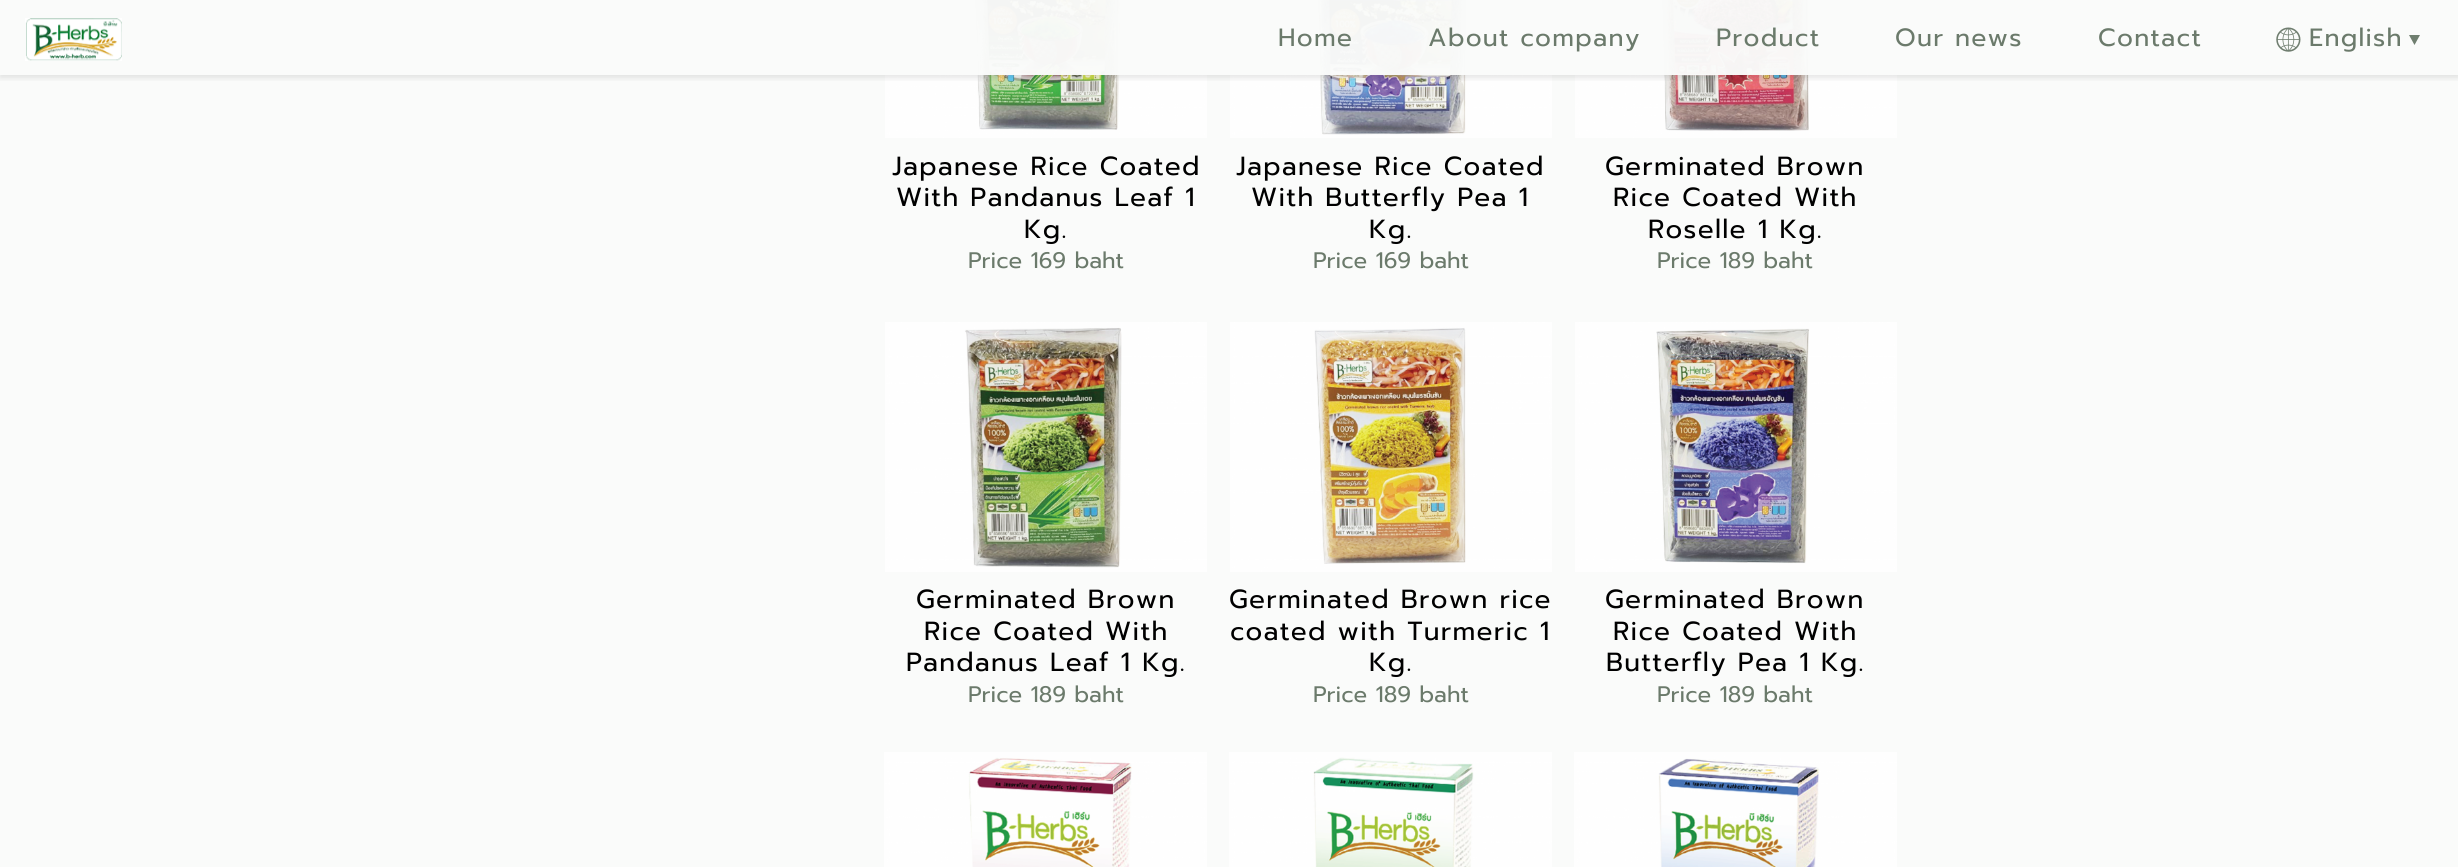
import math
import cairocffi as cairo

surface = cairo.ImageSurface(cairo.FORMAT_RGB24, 2458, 867)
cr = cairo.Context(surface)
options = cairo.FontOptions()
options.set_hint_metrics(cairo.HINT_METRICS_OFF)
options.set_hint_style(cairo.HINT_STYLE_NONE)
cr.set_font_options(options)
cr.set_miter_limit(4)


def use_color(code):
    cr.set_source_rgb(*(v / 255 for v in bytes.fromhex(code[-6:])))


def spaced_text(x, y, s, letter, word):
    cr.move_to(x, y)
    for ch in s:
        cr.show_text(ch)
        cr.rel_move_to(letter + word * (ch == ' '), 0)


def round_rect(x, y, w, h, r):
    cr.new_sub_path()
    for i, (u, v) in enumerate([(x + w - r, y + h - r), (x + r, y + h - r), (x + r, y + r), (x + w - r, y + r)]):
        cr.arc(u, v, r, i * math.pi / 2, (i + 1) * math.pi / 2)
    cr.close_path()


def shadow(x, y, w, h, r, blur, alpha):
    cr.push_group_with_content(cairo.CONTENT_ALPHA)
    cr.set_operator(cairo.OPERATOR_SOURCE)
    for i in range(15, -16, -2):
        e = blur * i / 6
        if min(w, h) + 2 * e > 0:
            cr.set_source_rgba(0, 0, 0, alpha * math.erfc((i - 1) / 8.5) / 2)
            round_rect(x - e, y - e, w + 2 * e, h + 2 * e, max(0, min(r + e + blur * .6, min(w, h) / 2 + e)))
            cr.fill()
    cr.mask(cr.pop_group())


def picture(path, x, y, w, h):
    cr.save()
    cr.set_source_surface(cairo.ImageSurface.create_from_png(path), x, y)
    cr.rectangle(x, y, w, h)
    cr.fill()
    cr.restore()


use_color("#fafbfa")
cr.paint()
picture("img3.png", 885, 0, 322, 138)
picture("img4.png", 1230, 0, 322, 138)
picture("img5.png", 1575, 0, 322, 138)
cr.save()
cr.rectangle(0, 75, 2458, 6)
cr.clip()
use_color("#000000")
shadow(0, 3, 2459, 75, 0, 3, 0.1)
cr.restore()
cr.set_source_rgba(0.98, 0.984, 0.98, 0.97)
cr.rectangle(885, 0, 1012, 75)
cr.fill()
picture("img1.png", 25, 18, 97, 43)
cr.select_font_face("Prompt")
cr.set_font_size(25)
use_color("#6b7a6b")
spaced_text(1278, 46, "Home", 1.25, 0)
spaced_text(1428, 46, "About company", 1.25, 0)
spaced_text(1716, 46, "Product", 1.25, 0)
spaced_text(1895, 46, "Our news", 1.25, 0)
spaced_text(2098, 46, "Contact", 1.25, 0)
picture("img2.png", 2276, 27, 25, 25)
spaced_text(2309, 46, "English", 1.25, 0)
use_color("#6f7e6f")
cr.new_path()
cr.move_to(2420, 35)
cr.line_to(2414.5, 45)
cr.line_to(2409, 35)
cr.close_path()
cr.fill()
cr.set_font_size(26.25)
use_color("#000000")
spaced_text(892, 175, "Japanese Rice Coated", 1.25, 0)
spaced_text(896, 206, "With Pandanus Leaf 1", 1.25, 0)
spaced_text(1024, 238, "Kg.", 1.25, 0)
cr.set_font_size(22.5)
use_color("#6b7a6b")
cr.move_to(968, 268)
cr.show_text("Price 169 baht")
cr.set_font_size(26.25)
use_color("#000000")
spaced_text(1236, 175, "Japanese Rice Coated", 1.25, 0)
spaced_text(1251, 206, "With Butterfly Pea 1", 1.25, 0)
spaced_text(1369, 238, "Kg.", 1.25, 0)
cr.set_font_size(22.5)
use_color("#6b7a6b")
cr.move_to(1313, 268)
cr.show_text("Price 169 baht")
cr.set_font_size(26.25)
use_color("#000000")
spaced_text(1605, 175, "Germinated Brown", 1.25, 0)
spaced_text(1613, 206, "Rice Coated With", 1.25, 0)
spaced_text(1648, 238, "Roselle 1 Kg.", 1.25, 0)
cr.set_font_size(22.5)
use_color("#6b7a6b")
cr.move_to(1657, 268)
cr.show_text("Price 189 baht")
picture("img6.png", 885, 322, 322, 250)
cr.set_font_size(26.25)
use_color("#000000")
spaced_text(916, 608, "Germinated Brown", 1.25, 0)
spaced_text(924, 640, "Rice Coated With", 1.25, 0)
spaced_text(906, 671, "Pandanus Leaf 1 Kg.", 1.25, 0)
cr.set_font_size(22.5)
use_color("#6b7a6b")
cr.move_to(968, 702)
cr.show_text("Price 189 baht")
picture("img7.png", 1230, 322, 322, 250)
cr.set_font_size(26.25)
use_color("#000000")
spaced_text(1229, 608, "Germinated Brown rice", 1.25, 0)
spaced_text(1230, 640, "coated with Turmeric 1", 1.25, 0)
spaced_text(1369, 671, "Kg.", 1.25, 0)
cr.set_font_size(22.5)
use_color("#6b7a6b")
cr.move_to(1313, 702)
cr.show_text("Price 189 baht")
picture("img8.png", 1575, 322, 322, 250)
cr.set_font_size(26.25)
use_color("#000000")
spaced_text(1605, 608, "Germinated Brown", 1.25, 0)
spaced_text(1613, 640, "Rice Coated With", 1.25, 0)
spaced_text(1606, 671, "Butterfly Pea 1 Kg.", 1.25, 0)
cr.set_font_size(22.5)
use_color("#6b7a6b")
cr.move_to(1657, 702)
cr.show_text("Price 189 baht")
picture("img9.png", 884, 752, 323, 115)
picture("img10.png", 1229, 752, 323, 115)
picture("img11.png", 1574, 752, 323, 115)
surface.write_to_png("result.png")
